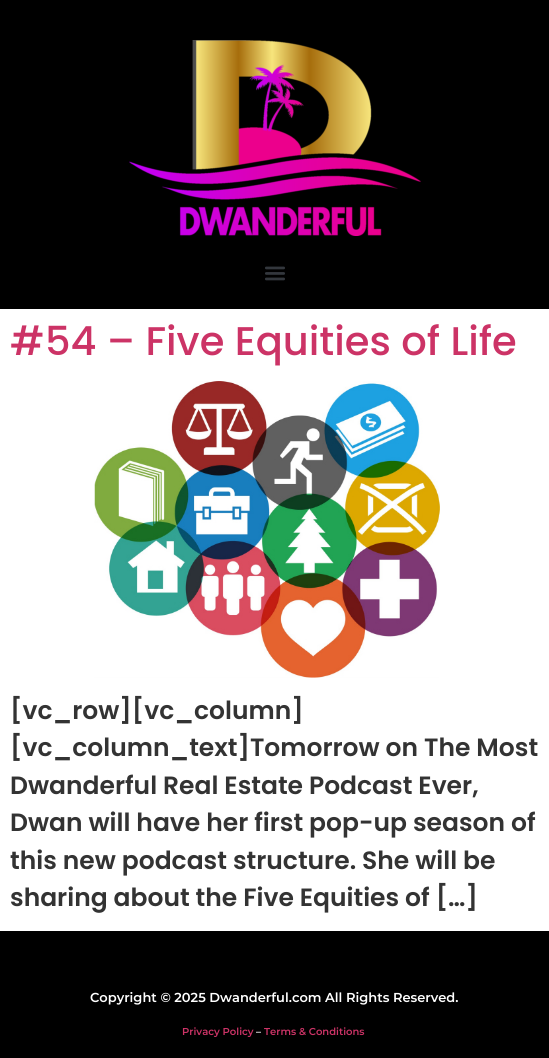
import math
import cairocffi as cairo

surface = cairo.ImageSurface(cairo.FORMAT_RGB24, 549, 1058)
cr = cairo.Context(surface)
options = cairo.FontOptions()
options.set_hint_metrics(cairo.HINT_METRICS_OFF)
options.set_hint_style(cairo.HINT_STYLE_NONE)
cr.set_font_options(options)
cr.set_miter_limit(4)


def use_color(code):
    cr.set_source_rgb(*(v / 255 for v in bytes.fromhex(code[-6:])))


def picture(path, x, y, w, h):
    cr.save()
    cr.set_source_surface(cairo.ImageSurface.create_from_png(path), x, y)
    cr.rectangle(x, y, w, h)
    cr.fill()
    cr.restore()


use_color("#ffffff")
cr.paint()
use_color("#000000")
cr.rectangle(0, 0, 549, 309)
cr.fill()
picture("img1.png", 129, 40, 292, 196)
picture("img2.png", 265, 266, 20, 15)
cr.select_font_face("Poppins Medium")
cr.set_font_size(40)
use_color("#cc3366")
cr.move_to(10, 355)
cr.show_text("#54 – Five Equities of Life")
picture("img3.png", 94, 381, 346, 297)
cr.select_font_face("Poppins SemiBold")
cr.set_font_size(25)
use_color("#333333")
cr.move_to(10, 719)
cr.show_text("[vc_row][vc_column]")
cr.move_to(10, 756)
cr.show_text("[vc_column_text]Tomorrow on The Most")
cr.move_to(10, 794)
cr.show_text("Dwanderful Real Estate Podcast Ever,")
cr.move_to(10, 831)
cr.show_text("Dwan will have her first pop-up season of")
cr.move_to(10, 869)
cr.show_text("this new podcast structure. She will be")
cr.move_to(10, 906)
cr.show_text("sharing about the Five Equities of […]")
use_color("#000000")
cr.rectangle(0, 931, 549, 127)
cr.fill()
cr.select_font_face("Montserrat SemiBold")
cr.set_font_size(13)
use_color("#ffffff")
cr.move_to(90, 1002)
cr.show_text("Copyright © 2025 Dwanderful.com All Rights Reserved.")
cr.set_font_size(10)
use_color("#cc3366")
cr.move_to(182, 1035)
cr.show_text("Privacy Policy")
use_color("#ffffff")
cr.move_to(256, 1035)
cr.show_text("–")
use_color("#cc3366")
cr.move_to(264, 1035)
cr.show_text("Terms & Conditions")
surface.write_to_png("result.png")
